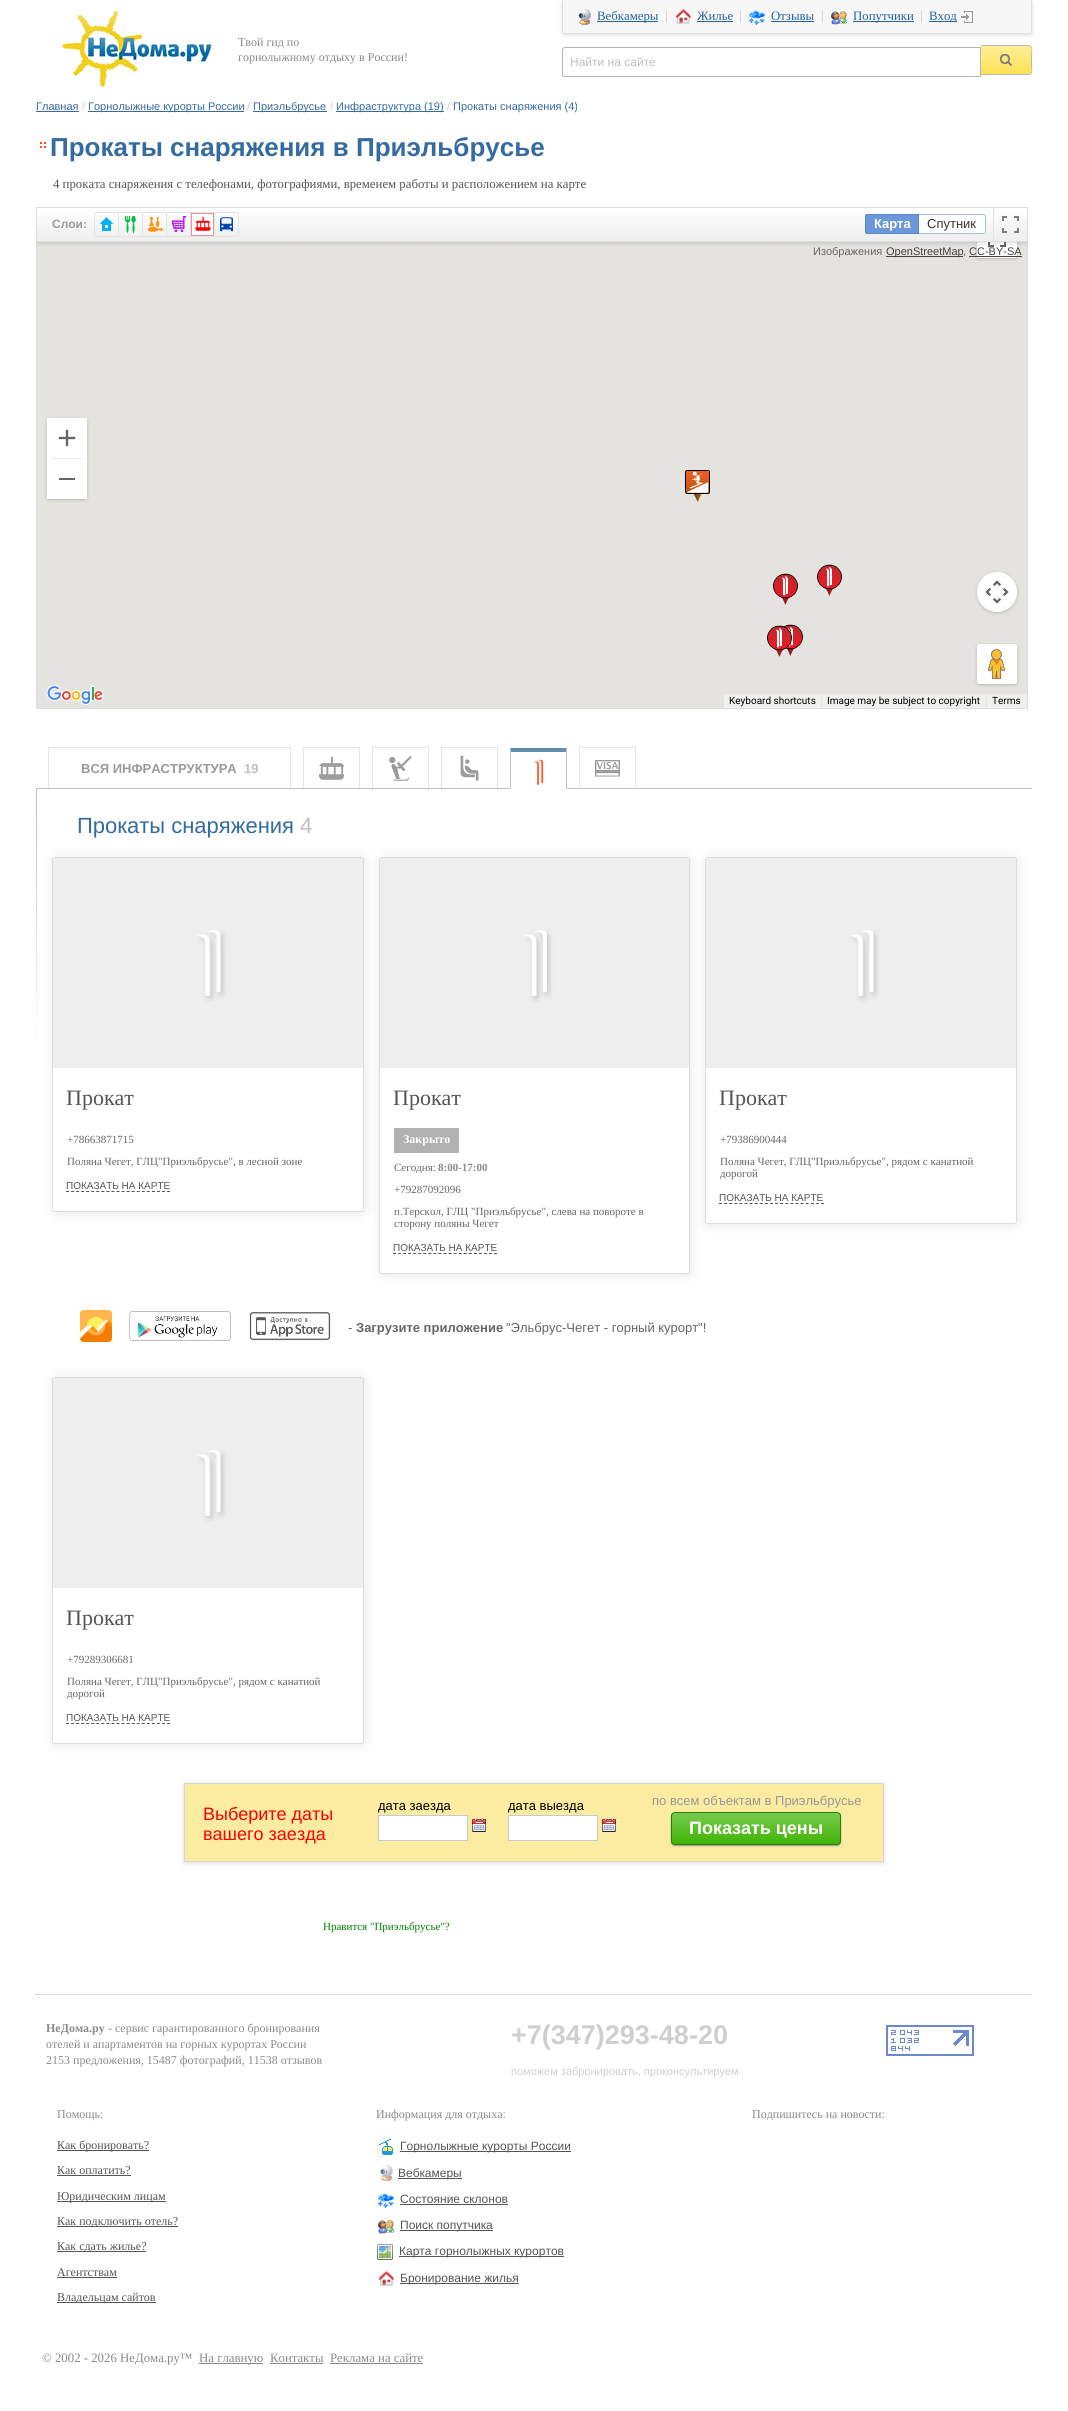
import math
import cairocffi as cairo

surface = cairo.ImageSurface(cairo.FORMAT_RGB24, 1068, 2411)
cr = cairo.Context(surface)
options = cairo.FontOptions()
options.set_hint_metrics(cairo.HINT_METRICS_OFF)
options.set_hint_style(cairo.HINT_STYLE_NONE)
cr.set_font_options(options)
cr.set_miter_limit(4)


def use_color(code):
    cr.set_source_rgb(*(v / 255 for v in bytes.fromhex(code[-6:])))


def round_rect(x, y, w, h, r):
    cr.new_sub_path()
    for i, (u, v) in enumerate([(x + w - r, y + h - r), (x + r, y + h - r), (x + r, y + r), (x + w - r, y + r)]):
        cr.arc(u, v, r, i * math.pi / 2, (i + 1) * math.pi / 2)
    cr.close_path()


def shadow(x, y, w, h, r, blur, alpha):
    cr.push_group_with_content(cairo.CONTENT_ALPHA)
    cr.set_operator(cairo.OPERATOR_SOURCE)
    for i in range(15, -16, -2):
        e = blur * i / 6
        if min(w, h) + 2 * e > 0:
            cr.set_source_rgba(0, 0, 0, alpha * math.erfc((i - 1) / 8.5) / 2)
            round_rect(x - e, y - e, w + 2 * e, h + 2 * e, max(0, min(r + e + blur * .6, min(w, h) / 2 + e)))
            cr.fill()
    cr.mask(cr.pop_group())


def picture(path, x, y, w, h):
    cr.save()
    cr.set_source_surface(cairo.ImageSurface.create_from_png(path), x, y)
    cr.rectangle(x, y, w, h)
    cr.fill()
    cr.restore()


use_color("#ffffff")
cr.paint()
picture("img1.png", 62, 11, 150, 76)
cr.select_font_face("Liberation Serif")
cr.set_font_size(12)
use_color("#8a8a8a")
cr.move_to(238, 46)
cr.show_text("Твой гид по")
cr.move_to(238, 61)
cr.show_text("горнолыжному отдыху в России!")
use_color("#dedede")
shadow(562, 1, 470, 34, 2, 2, 1)
use_color("#f7f7f7")
cr.new_path()
cr.move_to(562, 0)
cr.line_to(1032, 0)
cr.line_to(1032, 32)
cr.curve_to(1032, 33, 1031, 34, 1030, 34)
cr.line_to(564, 34)
cr.curve_to(563, 34, 562, 33, 562, 32)
cr.close_path()
cr.fill()
use_color("#e0e0e0")
cr.rectangle(1031, 0, 1, 33)
cr.fill()
cr.rectangle(563, 33, 468, 1)
cr.fill()
cr.rectangle(562, 0, 1, 33)
cr.fill()
picture("img2.png", 578, 9, 13, 16)
use_color("#25639a")
cr.rectangle(597, 21, 61, 1)
cr.fill()
cr.set_font_size(12.8)
cr.move_to(597, 20)
cr.show_text("Вебкамеры")
use_color("#bfbfbf")
cr.move_to(665, 20)
cr.show_text("|")
picture("img3.png", 676, 9, 15, 15)
use_color("#25639a")
cr.move_to(697, 20)
cr.show_text("Жилье")
cr.rectangle(697, 21, 36, 1)
cr.fill()
use_color("#bfbfbf")
cr.move_to(739, 20)
cr.show_text("|")
picture("img4.png", 749, 10, 16, 15)
use_color("#25639a")
cr.move_to(771, 20)
cr.show_text("Отзывы")
cr.rectangle(771, 21, 43, 1)
cr.fill()
use_color("#bfbfbf")
cr.move_to(821, 20)
cr.show_text("|")
picture("img5.png", 831, 11, 16, 14)
use_color("#25639a")
cr.rectangle(853, 21, 61, 1)
cr.fill()
cr.move_to(853, 20)
cr.show_text("Попутчики")
use_color("#bfbfbf")
cr.move_to(920, 20)
cr.show_text("|")
use_color("#25639a")
cr.rectangle(929, 21, 28, 1)
cr.fill()
cr.move_to(929, 20)
cr.show_text("Вход")
picture("img6.png", 961, 11, 12, 12)
cr.new_path()
cr.move_to(565, 47.5)
cr.line_to(980.5, 47.5)
cr.line_to(980.5, 76.5)
cr.line_to(565, 76.5)
cr.curve_to(563.5, 76.5, 562.5, 75.5, 562.5, 74)
cr.line_to(562.5, 50)
cr.curve_to(562.5, 48.5, 563.5, 47.5, 565, 47.5)
cr.close_path()
use_color("#b6b6b6")
cr.set_line_width(1)
cr.stroke()
cr.select_font_face("Liberation Sans")
cr.set_font_size(12)
use_color("#bfbfbf")
cr.move_to(570, 66)
cr.show_text("Найти на сайте")
cr.save()
cr.new_path()
cr.move_to(981, 45)
cr.line_to(1029, 45)
cr.curve_to(1030.5, 45, 1032, 46.5, 1032, 48)
cr.line_to(1032, 72)
cr.curve_to(1032, 73.5, 1030.5, 75, 1029, 75)
cr.line_to(981, 75)
cr.close_path()
cr.clip()
gradient = cairo.LinearGradient(1006, 46, 1006, 18)
gradient.add_color_stop_rgba(0, 0.992, 0.886, 0.333, 1)
gradient.add_color_stop_rgba(1, 0.996, 0.933, 0.584, 1)
cr.set_source(gradient)
cr.rectangle(1025, 45, 7, 1)
cr.fill()
gradient = cairo.LinearGradient(1006, 74, 1006, 46)
gradient.add_color_stop_rgba(0, 0.992, 0.886, 0.333, 1)
gradient.add_color_stop_rgba(1, 0.996, 0.933, 0.584, 1)
cr.set_source(gradient)
cr.rectangle(981, 46, 51, 28)
cr.fill()
gradient = cairo.LinearGradient(1006, 102, 1006, 74)
gradient.add_color_stop_rgba(0, 0.992, 0.886, 0.333, 1)
gradient.add_color_stop_rgba(1, 0.996, 0.933, 0.584, 1)
cr.set_source(gradient)
cr.rectangle(1025, 74, 7, 1)
cr.fill()
cr.restore()
use_color("#b6b6b6")
cr.set_fill_rule(cairo.FILL_RULE_EVEN_ODD)
cr.new_path()
cr.move_to(981, 45)
cr.line_to(1021, 45)
cr.curve_to(1035, 45, 1032, 45, 1032, 60)
cr.curve_to(1032, 75, 1035, 75, 1021, 75)
cr.line_to(981, 75)
cr.close_path()
cr.move_to(981, 46)
cr.line_to(1021, 46)
cr.curve_to(1035, 46, 1031, 45, 1031, 60)
cr.curve_to(1031, 75, 1035, 74, 1021, 74)
cr.line_to(981, 74)
cr.close_path()
cr.fill()
picture("img7.png", 1000, 54, 12, 13)
cr.set_font_size(11)
use_color("#346ba0")
cr.move_to(36, 110)
cr.show_text("Главная")
cr.rectangle(36, 111, 43, 1)
cr.fill()
use_color("#cfcfcf")
cr.move_to(82, 110)
cr.show_text("/")
use_color("#346ba0")
cr.rectangle(88, 111, 156, 1)
cr.fill()
cr.move_to(88, 110)
cr.show_text("Горнолыжные курорты России")
use_color("#cfcfcf")
cr.move_to(247, 110)
cr.show_text("/")
use_color("#346ba0")
cr.rectangle(253, 111, 74, 1)
cr.fill()
cr.move_to(253, 110)
cr.show_text("Приэльбрусье")
use_color("#cfcfcf")
cr.move_to(330, 110)
cr.show_text("/")
use_color("#346ba0")
cr.rectangle(336, 111, 108, 1)
cr.fill()
cr.move_to(336, 110)
cr.show_text("Инфраструктура (19)")
use_color("#cfcfcf")
cr.move_to(447, 110)
cr.show_text("/")
use_color("#346ba0")
cr.move_to(453, 110)
cr.show_text("Прокаты снаряжения (4)")
picture("img8.png", 40, 142, 6, 6)
cr.select_font_face("Liberation Sans", cairo.FONT_SLANT_NORMAL, cairo.FONT_WEIGHT_BOLD)
cr.set_font_size(26)
cr.move_to(50, 156)
cr.show_text("Прокаты снаряжения в Приэльбрусье")
cr.select_font_face("Liberation Serif")
cr.set_font_size(12.8)
use_color("#555555")
cr.move_to(53, 188)
cr.show_text("4 проката снаряжения с телефонами, фотографиями, временем работы и расположением на карте")
cr.rectangle(36.5, 207.5, 991, 501)
use_color("#dddddd")
cr.stroke()
use_color("#e5e3df")
cr.rectangle(37, 242, 990, 466)
cr.fill()
use_color("#000000")
shadow(978, 220, 38, 38, 1, 2, 0.3)
use_color("#ffffff")
round_rect(977, 218, 40, 40, 2)
cr.fill()
picture("img17.png", 988, 242, 18, 5)
picture("img9.png", 37, 208, 990, 38)
cr.select_font_face("Liberation Sans", cairo.FONT_SLANT_NORMAL, cairo.FONT_WEIGHT_BOLD)
cr.set_font_size(12)
use_color("#999999")
cr.move_to(52, 228)
cr.show_text("Слои:")
round_rect(94.5, 212.5, 144, 24, 2)
use_color("#e4e4e4")
cr.stroke()
cr.rectangle(118, 213, 1, 23)
cr.fill()
picture("img10.png", 99, 217, 15, 14)
cr.rectangle(142, 213, 1, 23)
cr.fill()
picture("img11.png", 125, 216, 11, 17)
cr.rectangle(166, 213, 1, 23)
cr.fill()
picture("img12.png", 148, 216, 15, 16)
cr.rectangle(190, 213, 1, 23)
cr.fill()
picture("img13.png", 171, 216, 15, 16)
use_color("#ffffff")
cr.rectangle(192, 214, 21, 21)
cr.fill()
use_color("#e4e4e4")
cr.rectangle(214, 213, 1, 23)
cr.fill()
picture("img14.png", 195, 216, 16, 15)
cr.rectangle(191.5, 213.5, 22, 22)
use_color("#f19292")
cr.stroke()
picture("img15.png", 220, 217, 13, 15)
use_color("#6c98db")
cr.new_path()
cr.move_to(867, 214.5)
cr.line_to(918.5, 214.5)
cr.line_to(918.5, 233.5)
cr.line_to(867, 233.5)
cr.curve_to(866, 233.5, 865.5, 233, 865.5, 232)
cr.line_to(865.5, 216)
cr.curve_to(865.5, 215, 866, 214.5, 867, 214.5)
cr.close_path()
cr.fill_preserve()
use_color("#538bca")
cr.stroke()
cr.set_font_size(13)
use_color("#ffffff")
cr.move_to(874, 228)
cr.show_text("Карта")
cr.new_path()
cr.move_to(919, 214)
cr.line_to(984, 214)
cr.curve_to(985, 214, 986, 215, 986, 216)
cr.line_to(986, 232)
cr.curve_to(986, 233, 985, 234, 984, 234)
cr.line_to(919, 234)
cr.close_path()
cr.fill()
use_color("#a3bce1")
cr.rectangle(919, 214, 66, 1)
cr.fill()
cr.rectangle(985, 215, 1, 18)
cr.fill()
cr.rectangle(919, 233, 66, 1)
cr.fill()
cr.select_font_face("Liberation Sans")
use_color("#333333")
cr.move_to(927, 228)
cr.show_text("Спутник")
use_color("#e4e4e4")
cr.rectangle(993, 208, 1, 33)
cr.fill()
picture("img16.png", 1002, 216, 17, 17)
cr.set_font_size(11)
use_color("#666666")
cr.move_to(813, 255)
cr.show_text("Изображения")
use_color("#444444")
cr.rectangle(886, 256, 77, 1)
cr.fill()
cr.move_to(886, 255)
cr.show_text("OpenStreetMap")
use_color("#666666")
cr.move_to(963, 255)
cr.show_text(",")
use_color("#444444")
cr.move_to(969, 255)
cr.show_text("CC-BY-SA")
cr.rectangle(969, 256, 53, 1)
cr.fill()
use_color("#000000")
shadow(48, 420, 38, 79, 1, 2, 0.3)
use_color("#ffffff")
cr.rectangle(47, 418, 40, 81)
cr.fill()
picture("img18.png", 58, 429, 18, 18)
use_color("#e6e6e6")
cr.rectangle(52, 458, 30, 1)
cr.fill()
use_color("#666666")
cr.rectangle(59, 478, 16, 2)
cr.fill()
picture("img19.png", 685, 470, 25, 32)
picture("img20.png", 773, 573, 25, 32)
picture("img20.png", 817, 564, 25, 32)
picture("img22.png", 783, 624, 20, 32)
picture("img21.png", 767, 625, 25, 32)
use_color("#000000")
shadow(978, 574, 38, 38, 19, 2, 0.3)
use_color("#ffffff")
cr.arc(997, 592, 20, 0, 2 * math.pi)
cr.fill()
picture("img23.png", 985, 580, 24, 24)
use_color("#000000")
shadow(978, 646, 38, 38, 1, 2, 0.3)
use_color("#ffffff")
round_rect(977, 644, 40, 40, 2)
cr.fill()
picture("img24.png", 988, 649, 17, 30)
picture("img25.png", 46, 685, 58, 20)
use_color("#f0f0ee")
cr.rectangle(724, 694, 97, 14)
cr.fill()
cr.select_font_face("Roboto")
cr.set_font_size(10)
use_color("#000000")
cr.move_to(729, 704)
cr.show_text("Keyboard shortcuts")
use_color("#f0f0ee")
cr.rectangle(822, 694, 164, 14)
cr.fill()
use_color("#000000")
cr.move_to(827, 704)
cr.show_text("Image may be subject to copyright")
use_color("#f0f0ee")
cr.rectangle(987, 694, 40, 14)
cr.fill()
use_color("#000000")
cr.move_to(992, 704)
cr.show_text("Terms")
picture("img26.png", 36, 789, 1, 250)
use_color("#e4e4e4")
cr.rectangle(48, 747, 243, 1)
cr.fill()
cr.set_fill_rule(cairo.FILL_RULE_WINDING)
cr.new_path()
cr.move_to(291, 747)
cr.line_to(291, 790)
cr.line_to(290, 789)
cr.line_to(290, 748)
cr.close_path()
cr.fill()
cr.new_path()
cr.move_to(48, 790)
cr.line_to(48, 747)
cr.line_to(49, 748)
cr.line_to(49, 789)
cr.close_path()
cr.fill()
cr.select_font_face("Liberation Sans", cairo.FONT_SLANT_NORMAL, cairo.FONT_WEIGHT_BOLD)
cr.set_font_size(13)
use_color("#999999")
cr.move_to(81, 773)
cr.show_text("ВСЯ ИНФРАСТРУКТУРА")
use_color("#bfbfbf")
cr.move_to(244, 773)
cr.show_text("19")
use_color("#e4e4e4")
cr.rectangle(303, 747, 57, 1)
cr.fill()
cr.new_path()
cr.move_to(360, 747)
cr.line_to(360, 790)
cr.line_to(359, 789)
cr.line_to(359, 748)
cr.close_path()
cr.move_to(303, 790)
cr.line_to(303, 747)
cr.line_to(304, 748)
cr.line_to(304, 789)
cr.close_path()
cr.fill()
picture("img27.png", 319, 756, 25, 24)
cr.rectangle(372, 747, 57, 1)
cr.fill()
cr.new_path()
cr.move_to(429, 747)
cr.line_to(429, 790)
cr.line_to(428, 789)
cr.line_to(428, 748)
cr.close_path()
cr.move_to(372, 790)
cr.line_to(372, 747)
cr.line_to(373, 748)
cr.line_to(373, 789)
cr.close_path()
cr.fill()
picture("img28.png", 389, 755, 23, 26)
cr.rectangle(441, 747, 57, 1)
cr.fill()
cr.new_path()
cr.move_to(498, 747)
cr.line_to(498, 790)
cr.line_to(497, 789)
cr.line_to(497, 748)
cr.close_path()
cr.move_to(441, 790)
cr.line_to(441, 747)
cr.line_to(442, 748)
cr.line_to(442, 789)
cr.close_path()
cr.fill()
picture("img29.png", 460, 755, 19, 26)
use_color("#c1c1c1")
cr.rectangle(36, 788, 996, 1)
cr.fill()
use_color("#ffffff")
cr.rectangle(510, 788, 57, 1)
cr.fill()
use_color("#618cb5")
cr.new_path()
cr.move_to(510, 748)
cr.line_to(567, 748)
cr.line_to(566, 752)
cr.line_to(511, 752)
cr.close_path()
cr.fill()
use_color("#c1c1c1")
cr.new_path()
cr.move_to(567, 748)
cr.line_to(567, 789)
cr.line_to(566, 788)
cr.line_to(566, 752)
cr.close_path()
cr.move_to(510, 789)
cr.line_to(510, 748)
cr.line_to(511, 752)
cr.line_to(511, 788)
cr.close_path()
cr.fill()
picture("img30.png", 534, 759, 10, 26)
use_color("#e4e4e4")
cr.rectangle(579, 747, 57, 1)
cr.fill()
cr.new_path()
cr.move_to(636, 747)
cr.line_to(636, 790)
cr.line_to(635, 789)
cr.line_to(635, 748)
cr.close_path()
cr.move_to(579, 790)
cr.line_to(579, 747)
cr.line_to(580, 748)
cr.line_to(580, 789)
cr.close_path()
cr.fill()
picture("img31.png", 595, 760, 25, 17)
cr.select_font_face("Liberation Sans")
cr.set_font_size(22)
use_color("#346ba0")
cr.move_to(77, 833)
cr.show_text("Прокаты снаряжения")
use_color("#bfbfbf")
cr.move_to(300, 833)
cr.show_text("4")
cr.save()
cr.set_fill_rule(cairo.FILL_RULE_EVEN_ODD)
cr.new_path()
cr.move_to(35, 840)
cr.line_to(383, 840)
cr.line_to(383, 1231)
cr.line_to(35, 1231)
cr.close_path()
cr.move_to(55, 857)
cr.line_to(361, 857)
cr.curve_to(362.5, 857, 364, 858.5, 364, 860)
cr.line_to(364, 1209)
cr.curve_to(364, 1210.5, 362.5, 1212, 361, 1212)
cr.line_to(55, 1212)
cr.curve_to(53.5, 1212, 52, 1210.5, 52, 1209)
cr.line_to(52, 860)
cr.curve_to(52, 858.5, 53.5, 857, 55, 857)
cr.close_path()
cr.clip()
use_color("#000000")
shadow(53, 858, 312, 355, 3, 5.5, 0.1)
cr.restore()
round_rect(52.5, 857.5, 311, 354, 2.5)
use_color("#dddddd")
cr.stroke()
cr.save()
cr.set_fill_rule(cairo.FILL_RULE_EVEN_ODD)
cr.new_path()
cr.move_to(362, 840)
cr.line_to(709, 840)
cr.line_to(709, 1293)
cr.line_to(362, 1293)
cr.close_path()
cr.move_to(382, 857)
cr.line_to(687, 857)
cr.curve_to(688.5, 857, 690, 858.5, 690, 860)
cr.line_to(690, 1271)
cr.curve_to(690, 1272.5, 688.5, 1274, 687, 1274)
cr.line_to(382, 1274)
cr.curve_to(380.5, 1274, 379, 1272.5, 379, 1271)
cr.line_to(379, 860)
cr.curve_to(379, 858.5, 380.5, 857, 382, 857)
cr.close_path()
cr.clip()
use_color("#000000")
shadow(380, 858, 311, 417, 3, 5.5, 0.1)
cr.restore()
use_color("#eeeeee")
cr.rectangle(53, 858, 310, 210)
cr.fill()
picture("img32.png", 197, 929, 29, 73)
cr.select_font_face("Liberation Serif")
use_color("#555555")
cr.move_to(66, 1105)
cr.show_text("Прокат")
cr.set_font_size(11)
use_color("#666666")
cr.move_to(67, 1143)
cr.show_text("+78663871715")
cr.move_to(67, 1165)
cr.show_text("Поляна Чегет, ГЛЦ\"Приэльбрусье\", в лесной зоне")
cr.select_font_face("Liberation Sans")
cr.set_font_size(10)
use_color("#555555")
cr.move_to(66, 1189)
cr.show_text("ПОКАЗАТЬ НА КАРТЕ")
cr.new_path()
cr.move_to(66, 1191.5)
cr.line_to(170, 1191.5)
cr.set_dash([3, 2.05])
cr.stroke()
round_rect(379.5, 857.5, 310, 416, 2.5)
use_color("#dddddd")
cr.set_dash([])
cr.stroke()
cr.save()
cr.set_fill_rule(cairo.FILL_RULE_EVEN_ODD)
cr.new_path()
cr.move_to(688, 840)
cr.line_to(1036, 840)
cr.line_to(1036, 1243)
cr.line_to(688, 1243)
cr.close_path()
cr.move_to(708, 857)
cr.line_to(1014, 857)
cr.curve_to(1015.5, 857, 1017, 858.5, 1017, 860)
cr.line_to(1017, 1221)
cr.curve_to(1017, 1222.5, 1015.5, 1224, 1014, 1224)
cr.line_to(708, 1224)
cr.curve_to(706.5, 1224, 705, 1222.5, 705, 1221)
cr.line_to(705, 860)
cr.curve_to(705, 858.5, 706.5, 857, 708, 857)
cr.close_path()
cr.clip()
use_color("#000000")
shadow(706, 858, 312, 367, 3, 5.5, 0.1)
cr.restore()
use_color("#eeeeee")
cr.rectangle(380, 858, 309, 210)
cr.fill()
picture("img33.png", 524, 929, 29, 73)
cr.select_font_face("Liberation Serif")
cr.set_font_size(22)
use_color("#555555")
cr.move_to(393, 1105)
cr.show_text("Прокат")
use_color("#b1b1b1")
cr.rectangle(394, 1128, 65, 25)
cr.fill()
cr.select_font_face("Liberation Serif", cairo.FONT_SLANT_NORMAL, cairo.FONT_WEIGHT_BOLD)
cr.set_font_size(12)
use_color("#ffffff")
cr.move_to(403, 1143)
cr.show_text("Закрыто")
cr.select_font_face("Liberation Serif")
cr.set_font_size(11)
use_color("#666666")
cr.move_to(394, 1171)
cr.show_text("Сегодня:")
cr.select_font_face("Liberation Serif", cairo.FONT_SLANT_NORMAL, cairo.FONT_WEIGHT_BOLD)
use_color("#8a8a8a")
cr.move_to(438, 1171)
cr.show_text("8:00-17:00")
cr.select_font_face("Liberation Serif")
use_color("#666666")
cr.move_to(394, 1193)
cr.show_text("+79287092096")
cr.move_to(394, 1215)
cr.show_text("п.Терскол, ГЛЦ \"Приэльбрусье\", слева на повороте в")
cr.move_to(394, 1227)
cr.show_text("сторону поляны Чегет")
cr.select_font_face("Liberation Sans")
cr.set_font_size(10)
use_color("#555555")
cr.move_to(393, 1251)
cr.show_text("ПОКАЗАТЬ НА КАРТЕ")
cr.new_path()
cr.move_to(393, 1253.5)
cr.line_to(497, 1253.5)
cr.set_dash([3, 2.05])
cr.stroke()
round_rect(705.5, 857.5, 311, 366, 2.5)
use_color("#dddddd")
cr.set_dash([])
cr.stroke()
use_color("#eeeeee")
cr.rectangle(706, 858, 310, 210)
cr.fill()
picture("img32.png", 850, 929, 29, 73)
cr.select_font_face("Liberation Serif")
cr.set_font_size(22)
use_color("#555555")
cr.move_to(719, 1105)
cr.show_text("Прокат")
cr.set_font_size(11)
use_color("#666666")
cr.move_to(720, 1143)
cr.show_text("+79386900444")
cr.move_to(720, 1165)
cr.show_text("Поляна Чегет, ГЛЦ\"Приэльбрусье\", рядом с канатной")
cr.move_to(720, 1177)
cr.show_text("дорогой")
cr.select_font_face("Liberation Sans")
cr.set_font_size(10)
use_color("#555555")
cr.move_to(719, 1201)
cr.show_text("ПОКАЗАТЬ НА КАРТЕ")
cr.new_path()
cr.move_to(719, 1203.5)
cr.line_to(824, 1203.5)
cr.set_dash([3, 2.1])
cr.stroke()
picture("img34.png", 80, 1310, 32, 32)
picture("img35.png", 129, 1311, 102, 30)
picture("img36.png", 249, 1312, 82, 29)
cr.set_font_size(13)
use_color("#666666")
cr.move_to(348, 1332)
cr.show_text("-")
cr.select_font_face("Liberation Sans", cairo.FONT_SLANT_NORMAL, cairo.FONT_WEIGHT_BOLD)
cr.move_to(356, 1332)
cr.show_text("Загрузите приложение")
cr.select_font_face("Liberation Sans")
cr.move_to(506, 1332)
cr.show_text("\"Эльбрус-Чегет - горный курорт\"!")
cr.save()
cr.set_fill_rule(cairo.FILL_RULE_EVEN_ODD)
cr.new_path()
cr.move_to(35, 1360)
cr.line_to(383, 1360)
cr.line_to(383, 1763)
cr.line_to(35, 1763)
cr.close_path()
cr.move_to(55, 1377)
cr.line_to(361, 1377)
cr.curve_to(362.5, 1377, 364, 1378.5, 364, 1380)
cr.line_to(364, 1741)
cr.curve_to(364, 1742.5, 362.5, 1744, 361, 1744)
cr.line_to(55, 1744)
cr.curve_to(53.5, 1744, 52, 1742.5, 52, 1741)
cr.line_to(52, 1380)
cr.curve_to(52, 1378.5, 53.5, 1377, 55, 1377)
cr.close_path()
cr.clip()
use_color("#000000")
shadow(53, 1378, 312, 367, 3, 5.5, 0.1)
cr.restore()
round_rect(52.5, 1377.5, 311, 366, 2.5)
use_color("#dddddd")
cr.set_dash([])
cr.stroke()
use_color("#eeeeee")
cr.rectangle(53, 1378, 310, 210)
cr.fill()
picture("img32.png", 197, 1449, 29, 73)
cr.select_font_face("Liberation Serif")
cr.set_font_size(22)
use_color("#555555")
cr.move_to(66, 1625)
cr.show_text("Прокат")
cr.set_font_size(11)
use_color("#666666")
cr.move_to(67, 1663)
cr.show_text("+79289306681")
cr.move_to(67, 1685)
cr.show_text("Поляна Чегет, ГЛЦ\"Приэльбрусье\", рядом с канатной")
cr.move_to(67, 1697)
cr.show_text("дорогой")
cr.select_font_face("Liberation Sans")
cr.set_font_size(10)
use_color("#555555")
cr.move_to(66, 1721)
cr.show_text("ПОКАЗАТЬ НА КАРТЕ")
cr.new_path()
cr.move_to(66, 1723.5)
cr.line_to(170, 1723.5)
cr.set_dash([3, 2.05])
cr.stroke()
use_color("#dddddd")
shadow(184, 1784, 700, 79, 0, 2.5, 1)
use_color("#fbeca2")
cr.rectangle(184.5, 1783.5, 699, 78)
cr.fill_preserve()
use_color("#dad4d4")
cr.set_dash([])
cr.stroke()
cr.set_font_size(18)
use_color("#ff0000")
cr.move_to(203, 1820)
cr.show_text("Выберите даты")
cr.move_to(203, 1840)
cr.show_text("вашего заезда")
cr.set_font_size(13)
use_color("#000000")
cr.move_to(378, 1810)
cr.show_text("дата заезда")
use_color("#ffffff")
cr.rectangle(378.5, 1815.5, 89, 25)
cr.fill_preserve()
use_color("#c7cacc")
cr.stroke()
picture("img37.png", 472, 1818, 14, 14)
use_color("#000000")
cr.move_to(508, 1810)
cr.show_text("дата выезда")
use_color("#ffffff")
cr.rectangle(508.5, 1815.5, 89, 25)
cr.fill_preserve()
use_color("#c7cacc")
cr.stroke()
picture("img37.png", 602, 1818, 14, 14)
use_color("#999999")
cr.move_to(652, 1805)
cr.show_text("по всем объектам в Приэльбрусье")
use_color("#999999")
shadow(671, 1813, 170, 33, 4, 0.5, 1)
cr.save()
round_rect(671, 1812, 170, 33, 4)
cr.clip()
gradient = cairo.LinearGradient(756, 1844, 756, 1813)
gradient.add_color_stop_rgba(0, 0.251, 0.706, 0.02, 1)
gradient.add_color_stop_rgba(1, 0.471, 0.792, 0.31, 1)
cr.set_source(gradient)
cr.rectangle(671, 1813, 170, 31)
cr.fill()
cr.restore()
round_rect(671.5, 1812.5, 169, 32, 3.5)
use_color("#2a8000")
cr.stroke()
cr.select_font_face("Liberation Sans", cairo.FONT_SLANT_NORMAL, cairo.FONT_WEIGHT_BOLD)
cr.set_font_size(18)
use_color("#ffffff")
cr.move_to(689, 1834)
cr.show_text("Показать цены")
cr.select_font_face("Liberation Serif")
cr.set_font_size(11)
use_color("#008000")
cr.move_to(323, 1930)
cr.show_text("Нравится \"Приэльбрусье\"?")
use_color("#dddddd")
cr.rectangle(36, 1994, 996, 1)
cr.fill()
use_color("#eeeeee")
cr.rectangle(1031, 1994, 1, 1)
cr.fill()
use_color("#9f9f9f")
cr.rectangle(36, 1994, 1, 1)
cr.fill()
cr.select_font_face("Liberation Serif", cairo.FONT_SLANT_NORMAL, cairo.FONT_WEIGHT_BOLD)
cr.set_font_size(12)
use_color("#8a8a8a")
cr.move_to(46, 2032)
cr.show_text("НеДома.ру")
cr.select_font_face("Liberation Serif")
cr.move_to(108, 2032)
cr.show_text("- сервис гарантированного бронирования")
cr.move_to(46, 2048)
cr.show_text("отелей и апартаментов на горных курортах России")
cr.move_to(46, 2064)
cr.show_text("2153 предложения, 15487 фотографий, 11538 отзывов")
cr.select_font_face("Liberation Sans", cairo.FONT_SLANT_NORMAL, cairo.FONT_WEIGHT_BOLD)
cr.set_font_size(27)
use_color("#cfcfcf")
cr.move_to(511, 2044)
cr.show_text("+7(347)293-48-20")
cr.select_font_face("Liberation Sans")
cr.set_font_size(11)
cr.move_to(511, 2075)
cr.show_text("поможем забронировать, проконсультируем")
picture("img38.png", 886, 2025, 88, 31)
cr.select_font_face("Liberation Serif")
cr.set_font_size(12)
use_color("#8a8a8a")
cr.move_to(57, 2118)
cr.show_text("Помощь:")
use_color("#555555")
cr.rectangle(57, 2150, 92, 1)
cr.fill()
cr.move_to(57, 2149)
cr.show_text("Как бронировать?")
cr.move_to(57, 2174)
cr.show_text("Как оплатить?")
cr.rectangle(57, 2175, 74, 1)
cr.fill()
cr.rectangle(57, 2201, 109, 1)
cr.fill()
cr.move_to(57, 2200)
cr.show_text("Юридическим лицам")
cr.rectangle(57, 2226, 121, 1)
cr.fill()
cr.move_to(57, 2225)
cr.show_text("Как подключить отель?")
cr.rectangle(57, 2251, 89, 1)
cr.fill()
cr.move_to(57, 2250)
cr.show_text("Как сдать жилье?")
cr.move_to(57, 2276)
cr.show_text("Агентствам")
cr.rectangle(57, 2277, 60, 1)
cr.fill()
cr.rectangle(57, 2302, 99, 1)
cr.fill()
cr.move_to(57, 2301)
cr.show_text("Владельцам сайтов")
use_color("#8a8a8a")
cr.move_to(376, 2118)
cr.show_text("Информация для отдыха:")
picture("img39.png", 379, 2139, 14, 16)
use_color("#555555")
cr.rectangle(400, 2151, 171, 1)
cr.fill()
cr.select_font_face("Liberation Sans")
cr.move_to(400, 2150)
cr.show_text("Горнолыжные курорты России")
picture("img40.png", 380, 2165, 13, 16)
cr.rectangle(398, 2178, 64, 1)
cr.fill()
cr.move_to(398, 2177)
cr.show_text("Вебкамеры")
picture("img41.png", 378, 2193, 16, 15)
cr.move_to(400, 2203)
cr.show_text("Состояние склонов")
cr.rectangle(400, 2204, 108, 1)
cr.fill()
picture("img42.png", 378, 2220, 16, 14)
cr.rectangle(400, 2230, 93, 1)
cr.fill()
cr.move_to(400, 2229)
cr.show_text("Поиск попутчика")
picture("img43.png", 377, 2244, 16, 16)
cr.rectangle(399, 2256, 165, 1)
cr.fill()
cr.move_to(399, 2255)
cr.show_text("Карта горнолыжных курортов")
picture("img44.png", 379, 2271, 15, 15)
cr.rectangle(400, 2283, 119, 1)
cr.fill()
cr.move_to(400, 2282)
cr.show_text("Бронирование жилья")
cr.select_font_face("Liberation Serif")
use_color("#8a8a8a")
cr.move_to(752, 2118)
cr.show_text("Подпишитесь на новости:")
cr.set_font_size(12.8)
cr.move_to(42, 2362)
cr.show_text("© 2002 - 2026 НеДома.ру™")
use_color("#888888")
cr.rectangle(199, 2363, 64, 1)
cr.fill()
use_color("#8a8a8a")
cr.move_to(199, 2362)
cr.show_text("На главную")
cr.move_to(270, 2362)
cr.show_text("Контакты")
use_color("#888888")
cr.rectangle(270, 2363, 53, 1)
cr.fill()
use_color("#8a8a8a")
cr.move_to(330, 2362)
cr.show_text("Реклама на сайте")
use_color("#888888")
cr.rectangle(330, 2363, 93, 1)
cr.fill()
surface.write_to_png("result.png")
